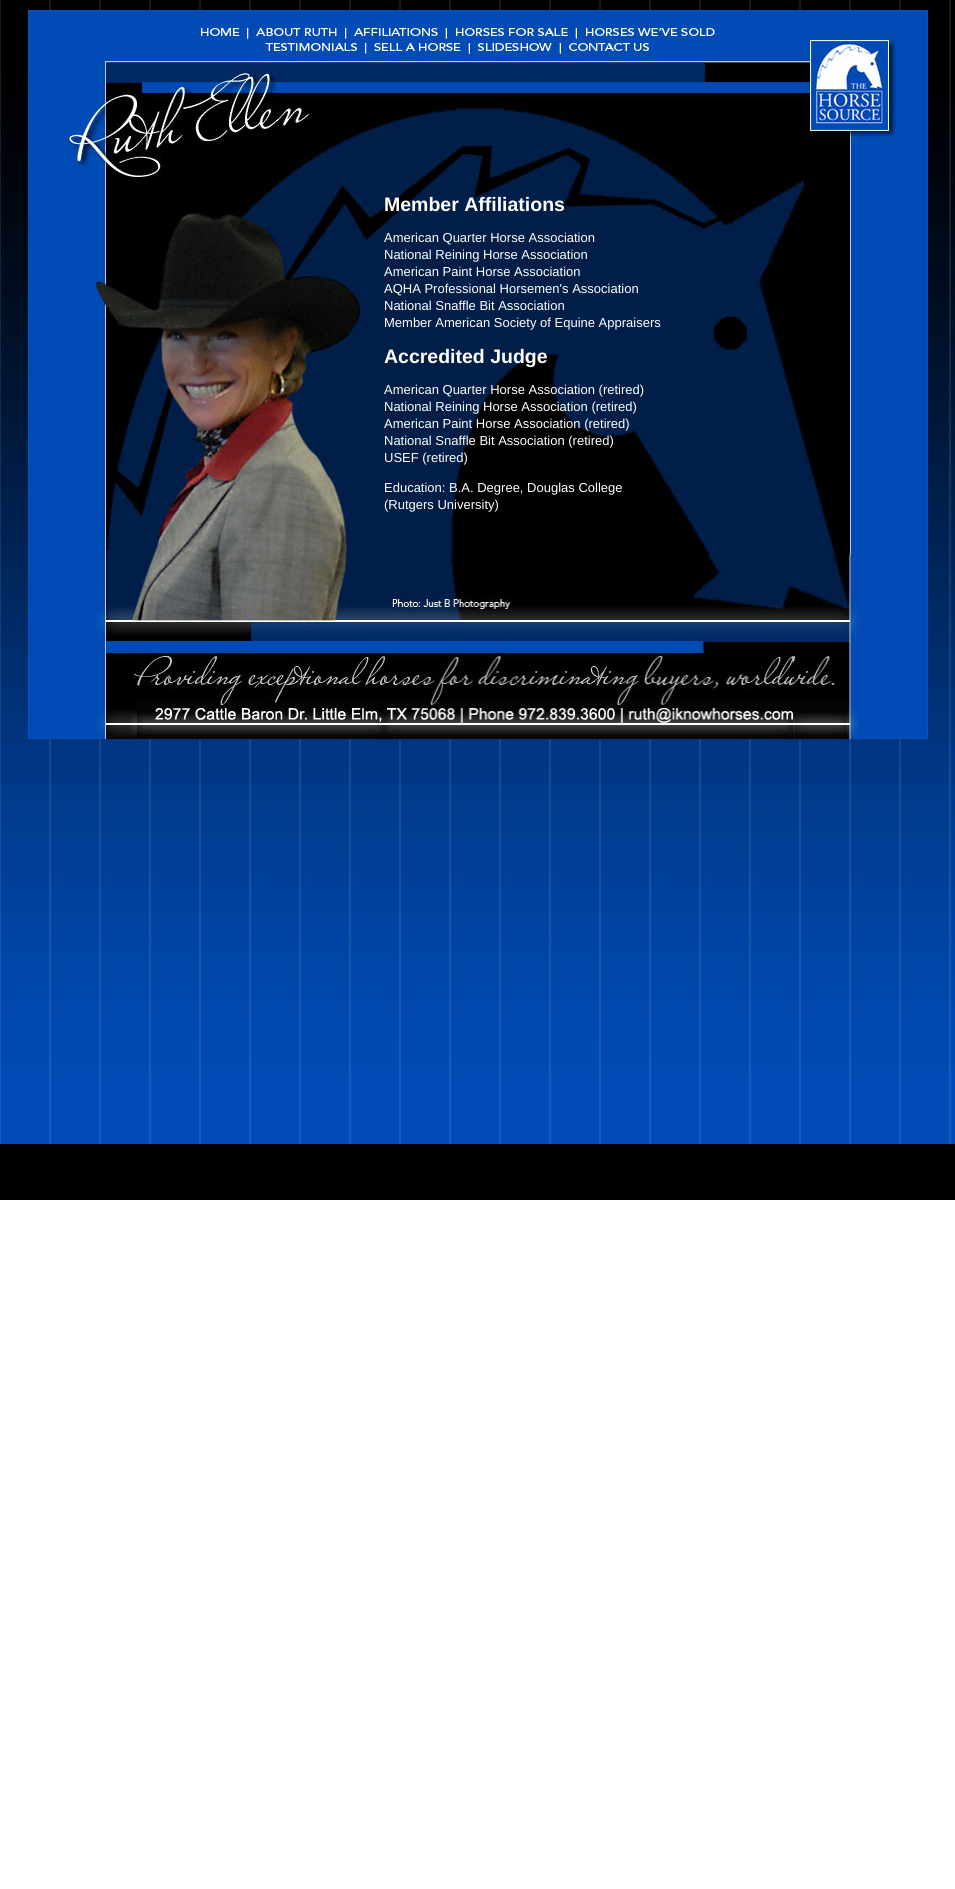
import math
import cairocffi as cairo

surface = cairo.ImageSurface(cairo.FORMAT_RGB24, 955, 1889)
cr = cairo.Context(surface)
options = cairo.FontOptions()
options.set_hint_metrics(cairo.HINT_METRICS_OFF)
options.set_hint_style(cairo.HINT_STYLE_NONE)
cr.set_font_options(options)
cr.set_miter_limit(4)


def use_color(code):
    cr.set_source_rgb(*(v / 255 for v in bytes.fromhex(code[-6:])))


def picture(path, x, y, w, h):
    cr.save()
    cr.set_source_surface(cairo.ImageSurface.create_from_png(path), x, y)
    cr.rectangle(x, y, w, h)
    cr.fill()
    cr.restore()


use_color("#ffffff")
cr.paint()
picture("img1.png", 0, 0, 955, 1200)
picture("img2.png", 28, 10, 356, 144)
picture("img3.png", 384, 10, 409, 144)
picture("img4.png", 793, 10, 135, 144)
picture("img5.png", 28, 154, 356, 401)
picture("img6.png", 384, 154, 409, 401)
cr.select_font_face("Liberation Sans", cairo.FONT_SLANT_NORMAL, cairo.FONT_WEIGHT_BOLD)
cr.set_font_size(19.5)
use_color("#ffffff")
cr.move_to(384, 211)
cr.show_text("Member Affiliations")
cr.select_font_face("Liberation Sans")
cr.set_font_size(13)
cr.move_to(384, 242)
cr.show_text("American Quarter Horse Association")
cr.move_to(384, 259)
cr.show_text("National Reining Horse Association")
cr.move_to(384, 276)
cr.show_text("American Paint Horse Association")
cr.move_to(384, 293)
cr.show_text("AQHA Professional Horsemen's Association")
cr.move_to(384, 310)
cr.show_text("National Snaffle Bit Association")
cr.move_to(384, 327)
cr.show_text("Member American Society of Equine Appraisers")
cr.select_font_face("Liberation Sans", cairo.FONT_SLANT_NORMAL, cairo.FONT_WEIGHT_BOLD)
cr.set_font_size(19.5)
cr.move_to(384, 363)
cr.show_text("Accredited Judge")
cr.select_font_face("Liberation Sans")
cr.set_font_size(13)
cr.move_to(384, 394)
cr.show_text("American Quarter Horse Association (retired)")
cr.move_to(384, 411)
cr.show_text("National Reining Horse Association (retired)")
cr.move_to(384, 428)
cr.show_text("American Paint Horse Association (retired)")
cr.move_to(384, 445)
cr.show_text("National Snaffle Bit Association (retired)")
cr.move_to(384, 462)
cr.show_text("USEF (retired)")
cr.move_to(384, 492)
cr.show_text("Education: B.A. Degree, Douglas College")
cr.move_to(384, 509)
cr.show_text("(Rutgers University)")
picture("img7.png", 793, 154, 135, 401)
picture("img8.png", 28, 555, 356, 184)
picture("img9.png", 384, 555, 409, 184)
picture("img10.png", 793, 555, 135, 184)
surface.write_to_png("result.png")
